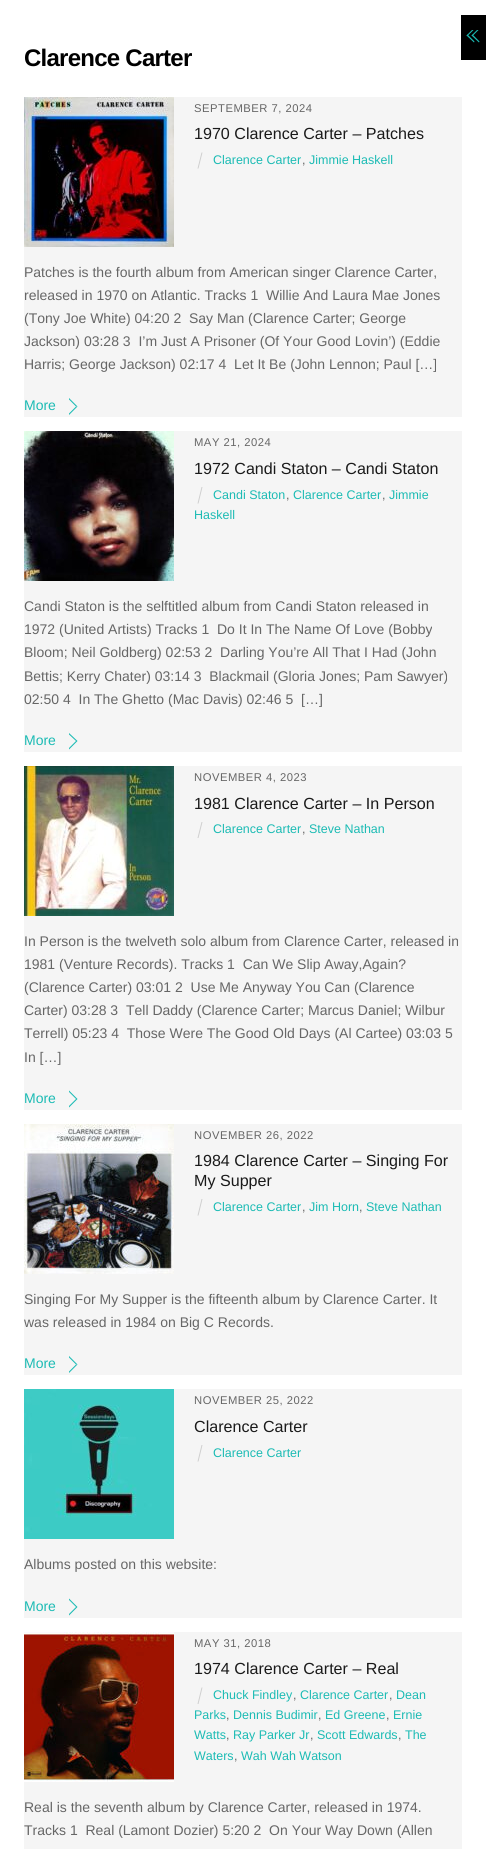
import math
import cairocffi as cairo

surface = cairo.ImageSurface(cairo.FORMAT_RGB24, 486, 1849)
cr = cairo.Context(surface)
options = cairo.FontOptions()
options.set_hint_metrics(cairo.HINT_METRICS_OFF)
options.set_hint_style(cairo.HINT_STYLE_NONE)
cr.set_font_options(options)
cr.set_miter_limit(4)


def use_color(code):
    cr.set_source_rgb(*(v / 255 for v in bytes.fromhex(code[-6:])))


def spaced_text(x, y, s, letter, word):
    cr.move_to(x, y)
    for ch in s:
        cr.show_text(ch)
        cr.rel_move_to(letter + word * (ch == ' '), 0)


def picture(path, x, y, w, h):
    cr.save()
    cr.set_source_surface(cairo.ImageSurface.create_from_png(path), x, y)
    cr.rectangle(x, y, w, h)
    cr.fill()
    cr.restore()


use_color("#ffffff")
cr.paint()
use_color("#000000")
cr.rectangle(461, 15, 25, 45)
cr.fill()
cr.save()
cr.rectangle(463, 30, 22, 18)
cr.clip()
use_color("#1bbbb4")
cr.new_path()
cr.move_to(466.5, 35.5)
cr.line_to(475, 27)
cr.line_to(476, 27.5)
cr.line_to(467.5, 36)
cr.close_path()
cr.fill()
cr.restore()
use_color("#1bbbb4")
cr.new_path()
cr.move_to(466.5, 35.5)
cr.line_to(467.5, 34.5)
cr.line_to(474.5, 41.5)
cr.line_to(474, 42.5)
cr.close_path()
cr.fill()
cr.save()
cr.rectangle(463, 30, 22, 18)
cr.clip()
cr.new_path()
cr.move_to(471.5, 35.5)
cr.line_to(480, 27)
cr.line_to(481, 27.5)
cr.line_to(472.5, 36)
cr.close_path()
cr.fill()
cr.restore()
cr.new_path()
cr.move_to(471.5, 35.5)
cr.line_to(472.5, 34.5)
cr.line_to(479.5, 41.5)
cr.line_to(479, 42.5)
cr.close_path()
cr.fill()
cr.select_font_face("Liberation Sans", cairo.FONT_SLANT_NORMAL, cairo.FONT_WEIGHT_BOLD)
cr.set_font_size(24)
use_color("#000000")
spaced_text(24, 66, "Clarence Carter", -0.75, 0)
use_color("#f5f5f5")
cr.rectangle(24, 97, 438, 320)
cr.fill()
picture("img1.png", 24, 97, 150, 150)
cr.select_font_face("Liberation Sans")
cr.set_font_size(11.25)
use_color("#666666")
spaced_text(194, 112, "SEPTEMBER 7, 2024", 0.5, 0)
cr.set_font_size(16.1)
use_color("#1a1a1a")
cr.move_to(194, 139)
cr.show_text("1970 Clarence Carter – Patches")
use_color("#cfcfcf")
cr.new_path()
cr.move_to(201.5, 152.5)
cr.line_to(202.5, 152.5)
cr.line_to(198.5, 168.5)
cr.line_to(197.5, 168.5)
cr.close_path()
cr.fill()
cr.set_font_size(12.5)
use_color("#1bbbb4")
cr.move_to(213, 164)
cr.show_text("Clarence Carter")
use_color("#666666")
cr.move_to(302, 164)
cr.show_text(",")
use_color("#1bbbb4")
cr.move_to(309, 164)
cr.show_text("Jimmie Haskell")
cr.set_font_size(14)
use_color("#666666")
cr.move_to(24, 277)
cr.show_text("Patches is the fourth album from American singer Clarence Carter,")
cr.move_to(24, 300)
cr.show_text("released in 1970 on Atlantic. Tracks 1  Willie And Laura Mae Jones")
cr.move_to(24, 323)
cr.show_text("(Tony Joe White) 04:20 2  Say Man (Clarence Carter; George")
cr.move_to(24, 346)
cr.show_text("Jackson) 03:28 3  I’m Just A Prisoner (Of Your Good Lovin’) (Eddie")
cr.move_to(24, 369)
cr.show_text("Harris; George Jackson) 02:17 4  Let It Be (John Lennon; Paul […]")
use_color("#1bbbb4")
cr.move_to(24, 410)
cr.show_text("More")
cr.new_path()
cr.move_to(69, 398)
cr.line_to(77.5, 406.5)
cr.line_to(76, 406.5)
cr.line_to(69, 399.5)
cr.close_path()
cr.fill()
cr.new_path()
cr.move_to(77.5, 406.5)
cr.line_to(69, 415)
cr.line_to(69, 413.5)
cr.line_to(76, 406.5)
cr.close_path()
cr.fill()
use_color("#f5f5f5")
cr.rectangle(24, 431, 438, 321)
cr.fill()
picture("img2.png", 24, 431, 150, 150)
cr.set_font_size(11.25)
use_color("#666666")
spaced_text(194, 446, "MAY 21, 2024", 0.5, 0)
cr.set_font_size(16.1)
use_color("#1a1a1a")
cr.move_to(194, 474)
cr.show_text("1972 Candi Staton – Candi Staton")
use_color("#cfcfcf")
cr.new_path()
cr.move_to(201.5, 487)
cr.line_to(202.5, 487)
cr.line_to(198.5, 503.5)
cr.line_to(197.5, 503.5)
cr.close_path()
cr.fill()
cr.set_font_size(12.5)
use_color("#1bbbb4")
cr.move_to(213, 499)
cr.show_text("Candi Staton")
use_color("#666666")
cr.move_to(286, 499)
cr.show_text(",")
use_color("#1bbbb4")
cr.move_to(293, 499)
cr.show_text("Clarence Carter")
use_color("#666666")
cr.move_to(382, 499)
cr.show_text(",")
use_color("#1bbbb4")
cr.move_to(389, 499)
cr.show_text("Jimmie")
cr.move_to(194, 519)
cr.show_text("Haskell")
cr.set_font_size(14)
use_color("#666666")
cr.move_to(24, 611)
cr.show_text("Candi Staton is the selftitled album from Candi Staton released in")
cr.move_to(24, 634)
cr.show_text("1972 (United Artists) Tracks 1  Do It In The Name Of Love (Bobby")
cr.move_to(24, 657)
cr.show_text("Bloom; Neil Goldberg) 02:53 2  Darling You’re All That I Had (John")
cr.move_to(24, 681)
cr.show_text("Bettis; Kerry Chater) 03:14 3  Blackmail (Gloria Jones; Pam Sawyer)")
cr.move_to(24, 704)
cr.show_text("02:50 4  In The Ghetto (Mac Davis) 02:46 5  […]")
use_color("#1bbbb4")
cr.move_to(24, 745)
cr.show_text("More")
cr.new_path()
cr.move_to(69, 733)
cr.line_to(77.5, 741)
cr.line_to(76, 741)
cr.line_to(69, 734.5)
cr.close_path()
cr.move_to(77.5, 741)
cr.line_to(69, 749.5)
cr.line_to(69, 748)
cr.line_to(76, 741)
cr.close_path()
cr.fill()
use_color("#f5f5f5")
cr.rectangle(24, 766, 438, 344)
cr.fill()
picture("img3.png", 24, 766, 150, 150)
cr.set_font_size(11.25)
use_color("#666666")
spaced_text(194, 781, "NOVEMBER 4, 2023", 0.5, 0)
cr.set_font_size(16.1)
use_color("#1a1a1a")
cr.move_to(194, 809)
cr.show_text("1981 Clarence Carter – In Person")
use_color("#cfcfcf")
cr.new_path()
cr.move_to(201.5, 822)
cr.line_to(202.5, 822)
cr.line_to(198.5, 838)
cr.line_to(197.5, 838)
cr.close_path()
cr.fill()
cr.set_font_size(12.5)
use_color("#1bbbb4")
cr.move_to(213, 833)
cr.show_text("Clarence Carter")
use_color("#666666")
cr.move_to(302, 833)
cr.show_text(",")
use_color("#1bbbb4")
cr.move_to(309, 833)
cr.show_text("Steve Nathan")
cr.set_font_size(14)
use_color("#666666")
cr.move_to(24, 946)
cr.show_text("In Person is the twelveth solo album from Clarence Carter, released in")
cr.move_to(24, 969)
cr.show_text("1981 (Venture Records). Tracks 1  Can We Slip Away,Again?")
cr.move_to(24, 992)
cr.show_text("(Clarence Carter) 03:01 2  Use Me Anyway You Can (Clarence")
cr.move_to(24, 1015)
cr.show_text("Carter) 03:28 3  Tell Daddy (Clarence Carter; Marcus Daniel; Wilbur")
cr.move_to(24, 1038)
cr.show_text("Terrell) 05:23 4  Those Were The Good Old Days (Al Cartee) 03:03 5")
cr.move_to(24, 1062)
cr.show_text("In […]")
use_color("#1bbbb4")
cr.move_to(24, 1103)
cr.show_text("More")
cr.new_path()
cr.move_to(69, 1090.5)
cr.line_to(77.5, 1099)
cr.line_to(76, 1099)
cr.line_to(69, 1092)
cr.close_path()
cr.move_to(77.5, 1099)
cr.line_to(69, 1107.5)
cr.line_to(69, 1106)
cr.line_to(76, 1099)
cr.close_path()
cr.fill()
use_color("#f5f5f5")
cr.rectangle(24, 1124, 438, 251)
cr.fill()
picture("img4.png", 24, 1124, 150, 150)
cr.set_font_size(11.25)
use_color("#666666")
spaced_text(194, 1139, "NOVEMBER 26, 2022", 0.5, 0)
cr.set_font_size(16.1)
use_color("#1a1a1a")
cr.move_to(194, 1166)
cr.show_text("1984 Clarence Carter – Singing For")
cr.move_to(194, 1186)
cr.show_text("My Supper")
use_color("#cfcfcf")
cr.new_path()
cr.move_to(201.5, 1199)
cr.line_to(202.5, 1199)
cr.line_to(198.5, 1215.5)
cr.line_to(197.5, 1215.5)
cr.close_path()
cr.fill()
cr.set_font_size(12.5)
use_color("#1bbbb4")
cr.move_to(213, 1211)
cr.show_text("Clarence Carter")
use_color("#666666")
cr.move_to(302, 1211)
cr.show_text(",")
use_color("#1bbbb4")
cr.move_to(309, 1211)
cr.show_text("Jim Horn")
use_color("#666666")
cr.move_to(359, 1211)
cr.show_text(",")
use_color("#1bbbb4")
cr.move_to(366, 1211)
cr.show_text("Steve Nathan")
cr.set_font_size(14)
use_color("#666666")
cr.move_to(24, 1304)
cr.show_text("Singing For My Supper is the fifteenth album by Clarence Carter. It")
cr.move_to(24, 1327)
cr.show_text("was released in 1984 on Big C Records.")
use_color("#1bbbb4")
cr.move_to(24, 1368)
cr.show_text("More")
cr.new_path()
cr.move_to(69, 1356)
cr.line_to(77.5, 1364.5)
cr.line_to(76, 1364.5)
cr.line_to(69, 1357.5)
cr.close_path()
cr.fill()
cr.new_path()
cr.move_to(77.5, 1364.5)
cr.line_to(69, 1373)
cr.line_to(69, 1371.5)
cr.line_to(76, 1364.5)
cr.close_path()
cr.fill()
use_color("#f5f5f5")
cr.rectangle(24, 1389, 438, 229)
cr.fill()
picture("img5.png", 24, 1389, 150, 150)
cr.set_font_size(11.25)
use_color("#666666")
spaced_text(194, 1404, "NOVEMBER 25, 2022", 0.5, 0)
cr.set_font_size(16.1)
use_color("#1a1a1a")
cr.move_to(194, 1432)
cr.show_text("Clarence Carter")
use_color("#cfcfcf")
cr.new_path()
cr.move_to(201.5, 1445)
cr.line_to(202.5, 1445)
cr.line_to(198.5, 1461.5)
cr.line_to(197.5, 1461.5)
cr.close_path()
cr.fill()
cr.set_font_size(12.5)
use_color("#1bbbb4")
cr.move_to(213, 1457)
cr.show_text("Clarence Carter")
cr.set_font_size(14)
use_color("#666666")
cr.move_to(24, 1569)
cr.show_text("Albums posted on this website:")
use_color("#1bbbb4")
cr.move_to(24, 1611)
cr.show_text("More")
cr.new_path()
cr.move_to(69, 1598.5)
cr.line_to(77.5, 1607)
cr.line_to(76, 1607)
cr.line_to(69, 1600)
cr.close_path()
cr.move_to(77.5, 1607)
cr.line_to(69, 1615.5)
cr.line_to(69, 1614)
cr.line_to(76, 1607)
cr.close_path()
cr.fill()
use_color("#f5f5f5")
cr.rectangle(24, 1632, 438, 217)
cr.fill()
picture("img6.png", 24, 1632, 150, 150)
cr.set_font_size(11.25)
use_color("#666666")
spaced_text(194, 1647, "MAY 31, 2018", 0.5, 0)
cr.set_font_size(16.1)
use_color("#1a1a1a")
cr.move_to(194, 1674)
cr.show_text("1974 Clarence Carter – Real")
use_color("#cfcfcf")
cr.new_path()
cr.move_to(201.5, 1687.5)
cr.line_to(202.5, 1687.5)
cr.line_to(198.5, 1704)
cr.line_to(197.5, 1704)
cr.close_path()
cr.fill()
cr.set_font_size(12.5)
use_color("#1bbbb4")
cr.move_to(213, 1699)
cr.show_text("Chuck Findley")
use_color("#666666")
cr.move_to(293, 1699)
cr.show_text(",")
use_color("#1bbbb4")
cr.move_to(300, 1699)
cr.show_text("Clarence Carter")
use_color("#666666")
cr.move_to(389, 1699)
cr.show_text(",")
use_color("#1bbbb4")
cr.move_to(396, 1699)
cr.show_text("Dean")
cr.move_to(194, 1719)
cr.show_text("Parks")
use_color("#666666")
cr.move_to(226, 1719)
cr.show_text(",")
use_color("#1bbbb4")
cr.move_to(233, 1719)
cr.show_text("Dennis Budimir")
use_color("#666666")
cr.move_to(318, 1719)
cr.show_text(",")
use_color("#1bbbb4")
cr.move_to(325, 1719)
cr.show_text("Ed Greene")
use_color("#666666")
cr.move_to(386, 1719)
cr.show_text(",")
use_color("#1bbbb4")
cr.move_to(393, 1719)
cr.show_text("Ernie")
cr.move_to(194, 1739)
cr.show_text("Watts")
use_color("#666666")
cr.move_to(226, 1739)
cr.show_text(",")
use_color("#1bbbb4")
cr.move_to(233, 1739)
cr.show_text("Ray Parker Jr")
use_color("#666666")
cr.move_to(310, 1739)
cr.show_text(",")
use_color("#1bbbb4")
cr.move_to(317, 1739)
cr.show_text("Scott Edwards")
use_color("#666666")
cr.move_to(398, 1739)
cr.show_text(",")
use_color("#1bbbb4")
cr.move_to(405, 1739)
cr.show_text("The")
cr.move_to(194, 1760)
cr.show_text("Waters")
use_color("#666666")
cr.move_to(234, 1760)
cr.show_text(",")
use_color("#1bbbb4")
cr.move_to(241, 1760)
cr.show_text("Wah Wah Watson")
cr.set_font_size(14)
use_color("#666666")
cr.move_to(24, 1812)
cr.show_text("Real is the seventh album by Clarence Carter, released in 1974.")
cr.move_to(24, 1835)
cr.show_text("Tracks 1  Real (Lamont Dozier) 5:20 2  On Your Way Down (Allen")
surface.write_to_png("result.png")
